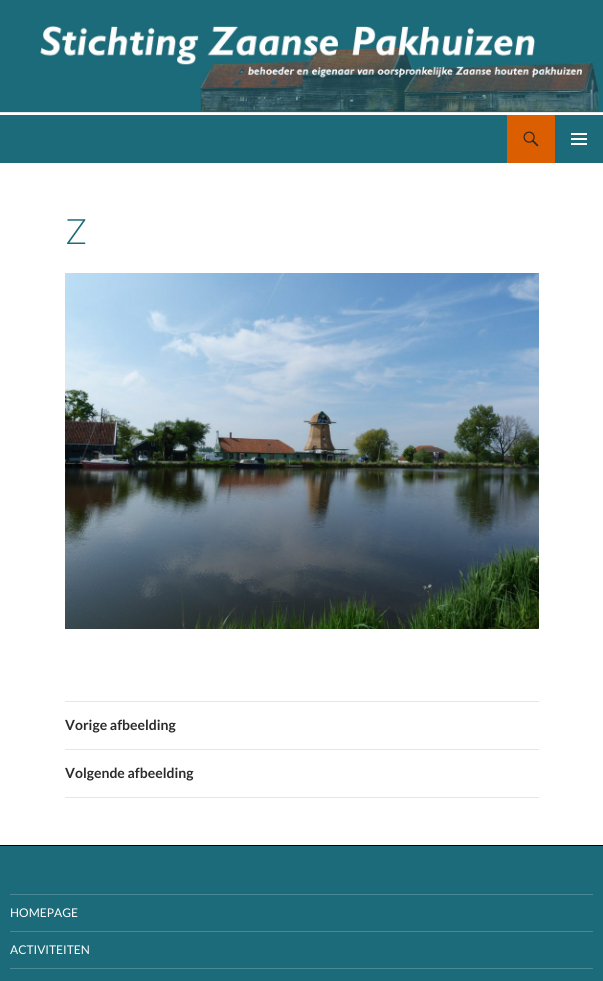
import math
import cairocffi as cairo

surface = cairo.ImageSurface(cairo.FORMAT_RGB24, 603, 981)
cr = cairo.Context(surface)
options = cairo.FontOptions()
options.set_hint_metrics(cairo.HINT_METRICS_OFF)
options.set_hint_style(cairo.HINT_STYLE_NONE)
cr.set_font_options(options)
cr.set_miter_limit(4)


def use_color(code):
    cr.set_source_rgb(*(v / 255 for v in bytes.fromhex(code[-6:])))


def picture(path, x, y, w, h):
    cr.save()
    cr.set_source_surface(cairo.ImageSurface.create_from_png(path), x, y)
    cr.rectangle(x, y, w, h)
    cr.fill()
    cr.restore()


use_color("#ffffff")
cr.paint()
picture("img1.png", 0, 0, 603, 113)
use_color("#1c6b7a")
cr.rectangle(0, 115, 603, 48)
cr.fill()
use_color("#db5e01")
cr.rectangle(507, 115, 48, 48)
cr.fill()
picture("img2.png", 523, 131, 16, 16)
picture("img3.png", 571, 133, 16, 12)
cr.select_font_face("Lato Light")
cr.set_font_size(35)
use_color("#1c6b7a")
cr.move_to(65, 244)
cr.show_text("Z")
picture("img4.png", 65, 273, 474, 356)
use_color("#e6e6e6")
cr.rectangle(65, 701, 474, 1)
cr.fill()
cr.rectangle(65, 749, 474, 1)
cr.fill()
cr.select_font_face("Lato", cairo.FONT_SLANT_NORMAL, cairo.FONT_WEIGHT_BOLD)
cr.set_font_size(14)
use_color("#2b2b2b")
cr.move_to(65, 730)
cr.show_text("Vorige afbeelding")
use_color("#e6e6e6")
cr.rectangle(65, 797, 474, 1)
cr.fill()
use_color("#2b2b2b")
cr.move_to(65, 778)
cr.show_text("Volgende afbeelding")
use_color("#1c6b7a")
cr.rectangle(0, 846, 603, 135)
cr.fill()
use_color("#000000")
cr.rectangle(0, 845, 603, 1)
cr.fill()
use_color("#498995")
cr.rectangle(10, 894, 583, 1)
cr.fill()
cr.select_font_face("Lato")
cr.set_font_size(12)
use_color("#ffffff")
cr.move_to(10, 917)
cr.show_text("HOMEPAGE")
use_color("#498995")
cr.rectangle(10, 931, 583, 1)
cr.fill()
use_color("#ffffff")
cr.move_to(10, 954)
cr.show_text("ACTIVITEITEN")
use_color("#498995")
cr.rectangle(10, 968, 583, 1)
cr.fill()
surface.write_to_png("result.png")
